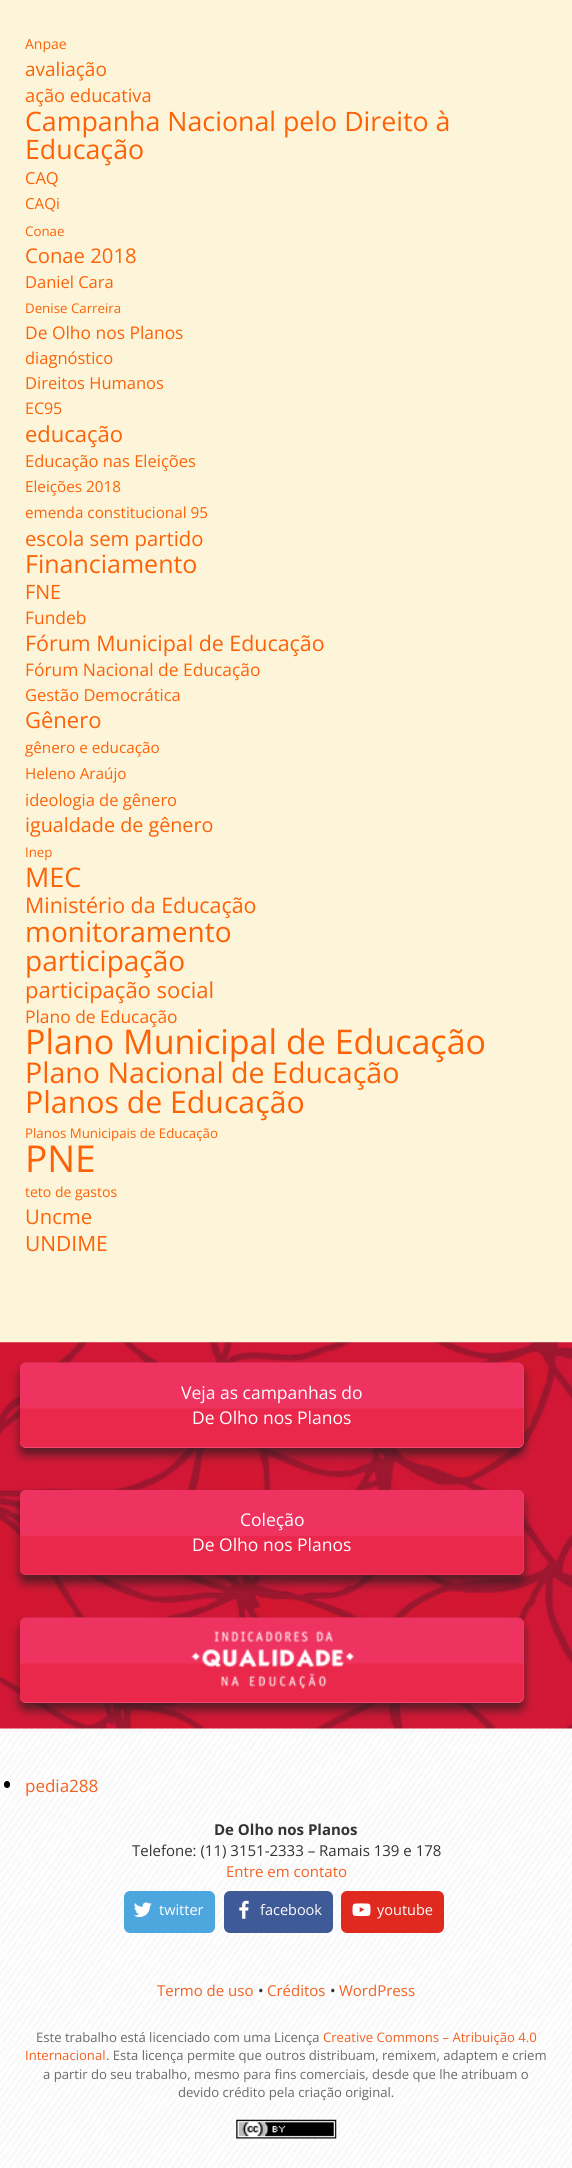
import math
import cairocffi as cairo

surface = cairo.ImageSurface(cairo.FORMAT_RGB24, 572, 2168)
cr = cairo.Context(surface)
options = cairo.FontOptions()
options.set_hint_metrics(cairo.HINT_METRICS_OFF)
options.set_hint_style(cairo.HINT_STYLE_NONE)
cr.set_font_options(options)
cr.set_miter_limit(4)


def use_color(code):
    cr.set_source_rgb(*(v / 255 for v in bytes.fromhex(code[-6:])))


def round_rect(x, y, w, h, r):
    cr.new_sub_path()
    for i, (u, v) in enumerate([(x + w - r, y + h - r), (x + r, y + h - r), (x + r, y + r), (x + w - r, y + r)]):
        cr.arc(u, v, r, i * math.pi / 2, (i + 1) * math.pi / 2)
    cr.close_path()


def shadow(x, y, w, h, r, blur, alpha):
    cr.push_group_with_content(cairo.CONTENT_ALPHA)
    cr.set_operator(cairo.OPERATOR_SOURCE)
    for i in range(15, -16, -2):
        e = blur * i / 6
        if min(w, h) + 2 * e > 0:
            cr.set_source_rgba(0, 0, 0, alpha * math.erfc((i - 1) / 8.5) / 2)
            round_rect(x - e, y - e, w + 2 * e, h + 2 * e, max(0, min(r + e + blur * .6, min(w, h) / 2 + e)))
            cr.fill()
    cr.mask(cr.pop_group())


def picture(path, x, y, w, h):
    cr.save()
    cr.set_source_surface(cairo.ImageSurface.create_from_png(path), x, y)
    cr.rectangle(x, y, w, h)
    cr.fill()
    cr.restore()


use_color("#fcf5d9")
cr.paint()
cr.select_font_face("Open Sans")
cr.set_font_size(14)
use_color("#fd6207")
cr.move_to(25, 49)
cr.show_text("Anpae")
cr.set_font_size(19)
cr.move_to(25, 76)
cr.show_text("avaliação")
cr.set_font_size(18.25)
cr.move_to(25, 102)
cr.show_text("ação educativa")
cr.set_font_size(26.75)
cr.move_to(25, 131)
cr.show_text("Campanha Nacional pelo Direito à")
cr.move_to(25, 159)
cr.show_text("Educação")
cr.set_font_size(16.5)
cr.move_to(25, 184)
cr.show_text("CAQ")
cr.set_font_size(15.25)
cr.move_to(25, 209)
cr.show_text("CAQi")
cr.set_font_size(13.3)
cr.move_to(25, 236)
cr.show_text("Conae")
cr.set_font_size(20.25)
cr.move_to(25, 263)
cr.show_text("Conae 2018")
cr.set_font_size(16.5)
cr.move_to(25, 288)
cr.show_text("Daniel Cara")
cr.set_font_size(13.3)
cr.move_to(25, 313)
cr.show_text("Denise Carreira")
cr.set_font_size(17.4)
cr.move_to(25, 339)
cr.show_text("De Olho nos Planos")
cr.set_font_size(16.5)
cr.move_to(25, 364)
cr.show_text("diagnóstico")
cr.move_to(25, 389)
cr.show_text("Direitos Humanos")
cr.set_font_size(16)
cr.move_to(25, 414)
cr.show_text("EC95")
cr.set_font_size(22)
cr.move_to(25, 442)
cr.show_text("educação")
cr.set_font_size(16.5)
cr.move_to(25, 467)
cr.show_text("Educação nas Eleições")
cr.set_font_size(15.25)
cr.move_to(25, 492)
cr.show_text("Eleições 2018")
cr.move_to(25, 518)
cr.show_text("emenda constitucional 95")
cr.set_font_size(20.25)
cr.move_to(25, 546)
cr.show_text("escola sem partido")
cr.set_font_size(25)
cr.move_to(25, 573)
cr.show_text("Financiamento")
cr.set_font_size(19.75)
cr.move_to(25, 599)
cr.show_text("FNE")
cr.set_font_size(17.4)
cr.move_to(25, 624)
cr.show_text("Fundeb")
cr.set_font_size(21.4)
cr.move_to(25, 651)
cr.show_text("Fórum Municipal de Educação")
cr.set_font_size(17.4)
cr.move_to(25, 676)
cr.show_text("Fórum Nacional de Educação")
cr.set_font_size(16.5)
cr.move_to(25, 701)
cr.show_text("Gestão Democrática")
cr.set_font_size(22)
cr.move_to(25, 728)
cr.show_text("Gênero")
cr.set_font_size(15.25)
cr.move_to(25, 753)
cr.show_text("gênero e educação")
cr.move_to(25, 779)
cr.show_text("Heleno Araújo")
cr.set_font_size(16.5)
cr.move_to(25, 806)
cr.show_text("ideologia de gênero")
cr.set_font_size(19.75)
cr.move_to(25, 832)
cr.show_text("igualdade de gênero")
cr.set_font_size(13.3)
cr.move_to(25, 857)
cr.show_text("Inep")
cr.set_font_size(27)
cr.move_to(25, 887)
cr.show_text("MEC")
cr.set_font_size(21.4)
cr.move_to(25, 913)
cr.show_text("Ministério da Educação")
cr.set_font_size(28)
cr.move_to(25, 942)
cr.show_text("monitoramento")
cr.move_to(25, 971)
cr.show_text("participação")
cr.set_font_size(22)
cr.move_to(25, 998)
cr.show_text("participação social")
cr.set_font_size(17.4)
cr.move_to(25, 1023)
cr.show_text("Plano de Educação")
cr.set_font_size(34)
cr.move_to(25, 1054)
cr.show_text("Plano Municipal de Educação")
cr.set_font_size(28.6)
cr.move_to(25, 1083)
cr.show_text("Plano Nacional de Educação")
cr.set_font_size(30.25)
cr.move_to(25, 1113)
cr.show_text("Planos de Educação")
cr.set_font_size(13.3)
cr.move_to(25, 1138)
cr.show_text("Planos Municipais de Educação")
cr.set_font_size(37)
cr.move_to(25, 1172)
cr.show_text("PNE")
cr.set_font_size(14)
cr.move_to(25, 1197)
cr.show_text("teto de gastos")
cr.set_font_size(20.25)
cr.move_to(25, 1224)
cr.show_text("Uncme")
cr.set_font_size(21)
cr.move_to(25, 1251)
cr.show_text("UNDIME")
picture("img6.png", 0, 1728, 572, 440)
picture("img1.png", 0, 1342, 572, 387)
use_color("#1e1e1e")
shadow(20, 1370, 504, 85, 6, 5, 0.7)
use_color("#f2486f")
round_rect(20, 1363, 504, 85, 6)
cr.fill()
picture("img2.png", 20, 1362, 504, 85)
cr.set_font_size(17.5)
use_color("#ffffff")
cr.move_to(181, 1399)
cr.show_text("Veja as campanhas do")
cr.move_to(192, 1424)
cr.show_text("De Olho nos Planos")
use_color("#1e1e1e")
shadow(20, 1498, 504, 85, 6, 5, 0.7)
use_color("#f2486f")
round_rect(20, 1490, 504, 85, 6)
cr.fill()
picture("img3.png", 20, 1489, 504, 86)
use_color("#ffffff")
cr.move_to(240, 1526)
cr.show_text("Coleção")
cr.move_to(192, 1551)
cr.show_text("De Olho nos Planos")
use_color("#1e1e1e")
shadow(20, 1625, 504, 85, 6, 5, 0.7)
use_color("#f2486f")
round_rect(20, 1618, 504, 85, 6)
cr.fill()
picture("img4.png", 20, 1617, 504, 85)
picture("img5.png", 191, 1631, 163, 58)
use_color("#000000")
round_rect(4, 1781, 6, 7, 3)
cr.fill()
cr.set_font_size(17)
use_color("#f26122")
cr.move_to(25, 1792)
cr.show_text("pedia288")
cr.select_font_face("Open Sans", cairo.FONT_SLANT_NORMAL, cairo.FONT_WEIGHT_BOLD)
cr.set_font_size(15)
use_color("#333333")
cr.move_to(214, 1835)
cr.show_text("De Olho nos Planos")
cr.select_font_face("Open Sans")
cr.move_to(132, 1856)
cr.show_text("Telefone: (11) 3151-2333 – Ramais 139 e 178")
use_color("#f26122")
cr.move_to(226, 1877)
cr.show_text("Entre em contato")
use_color("#4da7de")
round_rect(124, 1891, 91, 42, 6)
cr.fill()
picture("img7.png", 134, 1902, 18, 16)
cr.set_font_size(14.5)
use_color("#ffffff")
cr.move_to(159, 1915)
cr.show_text("twitter")
use_color("#3e5b98")
round_rect(224, 1891, 109, 42, 6)
cr.fill()
picture("img8.png", 239, 1900, 10, 19)
use_color("#ffffff")
cr.move_to(260, 1915)
cr.show_text("facebook")
use_color("#e02a20")
round_rect(341, 1891, 103, 42, 6)
cr.fill()
picture("img9.png", 352, 1903, 19, 14)
use_color("#ffffff")
cr.move_to(377, 1915)
cr.show_text("youtube")
cr.set_font_size(15)
use_color("#f26122")
cr.move_to(157, 1996)
cr.show_text("Termo de uso")
use_color("#333333")
cr.move_to(258, 1996)
cr.show_text("•")
use_color("#f26122")
cr.move_to(267, 1996)
cr.show_text("Créditos")
use_color("#333333")
cr.move_to(330, 1996)
cr.show_text("•")
use_color("#f26122")
cr.move_to(339, 1996)
cr.show_text("WordPress")
cr.set_font_size(13.1)
use_color("#696a69")
cr.move_to(36, 2042)
cr.show_text("Este trabalho está licenciado com uma Licença")
use_color("#f26122")
cr.move_to(323, 2042)
cr.show_text("Creative Commons – Atribuição 4.0")
cr.move_to(25, 2060)
cr.show_text("Internacional")
use_color("#696a69")
cr.move_to(106, 2060)
cr.show_text(". Esta licença permite que outros distribuam, remixem, adaptem e criem")
cr.move_to(43, 2079)
cr.show_text("a partir do seu trabalho, mesmo para fins comerciais, desde que lhe atribuam o")
cr.move_to(178, 2097)
cr.show_text("devido crédito pela criação original.")
picture("img10.png", 236, 2119, 101, 20)
surface.write_to_png("result.png")
